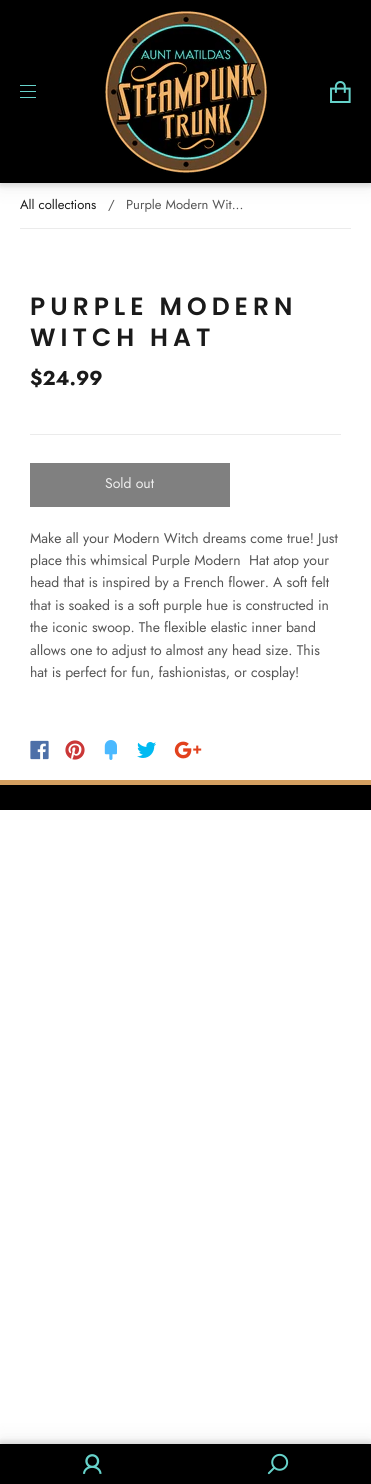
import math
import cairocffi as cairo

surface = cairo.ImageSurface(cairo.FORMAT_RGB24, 371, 1484)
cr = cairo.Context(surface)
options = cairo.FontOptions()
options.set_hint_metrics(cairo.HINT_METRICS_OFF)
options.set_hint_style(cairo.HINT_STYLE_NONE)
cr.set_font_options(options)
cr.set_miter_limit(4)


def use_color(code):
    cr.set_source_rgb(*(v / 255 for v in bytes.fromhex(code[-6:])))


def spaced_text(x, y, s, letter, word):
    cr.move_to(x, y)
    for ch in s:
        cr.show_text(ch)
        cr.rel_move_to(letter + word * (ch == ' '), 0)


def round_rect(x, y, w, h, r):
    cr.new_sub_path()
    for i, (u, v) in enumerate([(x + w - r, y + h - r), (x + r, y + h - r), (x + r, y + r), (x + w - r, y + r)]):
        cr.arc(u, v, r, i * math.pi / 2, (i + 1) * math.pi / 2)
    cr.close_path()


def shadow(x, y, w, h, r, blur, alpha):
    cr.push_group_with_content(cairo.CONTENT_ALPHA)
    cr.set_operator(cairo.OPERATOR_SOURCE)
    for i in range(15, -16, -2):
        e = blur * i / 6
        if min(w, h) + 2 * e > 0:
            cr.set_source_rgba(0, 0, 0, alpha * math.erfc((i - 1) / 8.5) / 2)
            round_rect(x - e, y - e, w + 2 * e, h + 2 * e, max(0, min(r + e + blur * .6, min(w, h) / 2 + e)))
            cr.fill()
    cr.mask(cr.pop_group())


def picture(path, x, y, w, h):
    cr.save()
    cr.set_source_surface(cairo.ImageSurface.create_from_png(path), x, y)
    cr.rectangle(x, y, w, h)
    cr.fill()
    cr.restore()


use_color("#ffffff")
cr.paint()
use_color("#000000")
shadow(0, 6, 371, 183, 0, 10, 0.06)
shadow(0, 3, 371, 183, 0, 2.5, 0.12)
use_color("#000000")
cr.rectangle(0, 0, 371, 183)
cr.fill()
use_color("#67d3cb")
cr.rectangle(20, 85, 16, 1)
cr.fill()
cr.rectangle(20, 91, 16, 1)
cr.fill()
cr.rectangle(20, 97, 16, 1)
cr.fill()
picture("img1.png", 105, 11, 162, 162)
picture("img2.png", 330, 81, 21, 22)
use_color("#ebebeb")
cr.rectangle(20, 228, 331, 1)
cr.fill()
cr.select_font_face("Jost")
cr.set_font_size(13)
use_color("#1a1a1a")
cr.move_to(20, 209)
cr.show_text("All collections")
use_color("#555555")
cr.move_to(108, 209)
cr.show_text("/")
cr.move_to(126, 209)
cr.show_text("Purple Modern Wit...")
use_color("#ebebeb")
cr.rectangle(30, 434, 311, 1)
cr.fill()
cr.select_font_face("Poppins SemiBold")
cr.set_font_size(25)
use_color("#1a1a1a")
spaced_text(30, 315, "PURPLE MODERN", 5, 0)
spaced_text(30, 346, "WITCH HAT", 5, 0)
cr.select_font_face("Jost", cairo.FONT_SLANT_NORMAL, cairo.FONT_WEIGHT_BOLD)
cr.set_font_size(20)
cr.move_to(30, 385)
cr.show_text("$24.99")
use_color("#808080")
cr.rectangle(30, 463, 200, 44)
cr.fill()
cr.select_font_face("Jost")
cr.set_font_size(14)
use_color("#eeeeee")
cr.move_to(105, 488)
cr.show_text("Sold out")
use_color("#555555")
cr.move_to(30, 543)
cr.show_text("Make all your Modern Witch dreams come true! Just")
cr.move_to(30, 565)
cr.show_text("place this whimsical Purple Modern  Hat atop your")
cr.move_to(30, 587)
cr.show_text("head that is inspired by a French flower. A soft felt")
cr.move_to(30, 610)
cr.show_text("that is soaked is a soft purple hue is constructed in")
cr.move_to(30, 632)
cr.show_text("the iconic swoop. The flexible elastic inner band")
cr.move_to(30, 655)
cr.show_text("allows one to adjust to almost any head size. This")
cr.move_to(30, 677)
cr.show_text("hat is perfect for fun, fashionistas, or cosplay!")
picture("img3.png", 30, 740, 19, 20)
picture("img4.png", 65, 740, 20, 20)
picture("img5.png", 104, 740, 13, 20)
picture("img6.png", 137, 742, 19, 16)
picture("img7.png", 174, 741, 28, 18)
use_color("#000000")
cr.rectangle(0, 785, 371, 25)
cr.fill()
use_color("#d49f60")
cr.rectangle(0, 780, 371, 5)
cr.fill()
use_color("#000000")
shadow(0, 1438, 371, 40, 0, 10, 0.06)
shadow(0, 1441, 371, 40, 0, 2.5, 0.12)
use_color("#000000")
cr.rectangle(0, 1444, 371, 40)
cr.fill()
picture("img8.png", 83, 1454, 19, 20)
picture("img9.png", 267, 1453, 22, 22)
surface.write_to_png("result.png")
